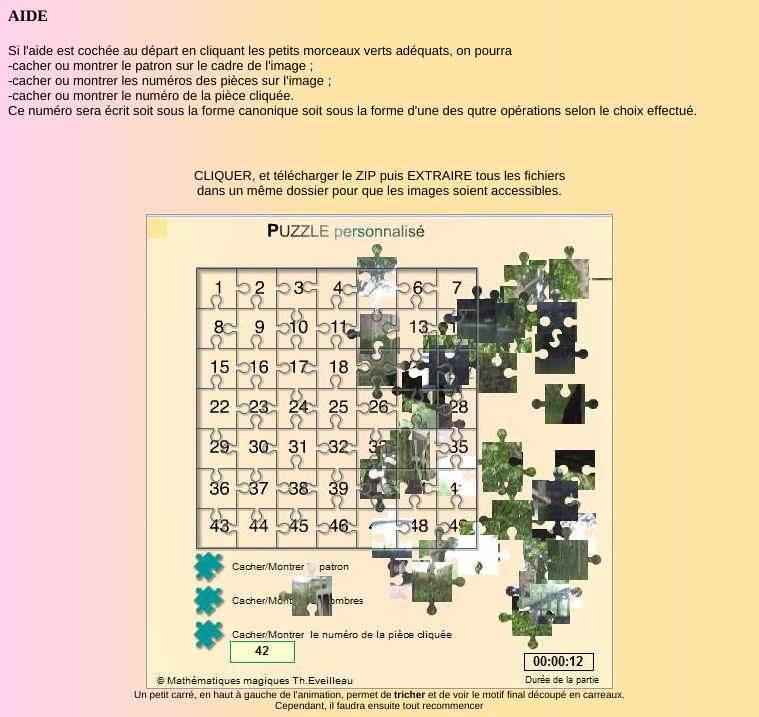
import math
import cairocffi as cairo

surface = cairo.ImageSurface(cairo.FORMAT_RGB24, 759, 717)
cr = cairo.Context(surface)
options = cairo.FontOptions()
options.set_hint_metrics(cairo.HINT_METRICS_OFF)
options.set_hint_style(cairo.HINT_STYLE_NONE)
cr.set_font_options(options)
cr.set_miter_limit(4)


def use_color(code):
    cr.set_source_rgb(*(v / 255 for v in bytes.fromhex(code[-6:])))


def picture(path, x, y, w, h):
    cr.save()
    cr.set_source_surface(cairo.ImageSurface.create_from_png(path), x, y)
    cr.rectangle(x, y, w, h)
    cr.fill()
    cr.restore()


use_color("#ffffff")
cr.paint()
picture("img1.png", 0, 0, 759, 717)
cr.select_font_face("Liberation Serif", cairo.FONT_SLANT_NORMAL, cairo.FONT_WEIGHT_BOLD)
cr.set_font_size(16)
use_color("#000000")
cr.move_to(8, 21)
cr.show_text("AIDE")
cr.select_font_face("Liberation Sans")
cr.set_font_size(13)
cr.move_to(8, 55)
cr.show_text("Si l'aide est cochée au départ en cliquant les petits morceaux verts adéquats, on pourra")
cr.move_to(8, 70)
cr.show_text("-cacher ou montrer le patron sur le cadre de l'image ;")
cr.move_to(8, 85)
cr.show_text("-cacher ou montrer les numéros des pièces sur l'image ;")
cr.move_to(8, 100)
cr.show_text("-cacher ou montrer le numéro de la pièce cliquée.")
cr.move_to(8, 115)
cr.show_text("Ce numéro sera écrit soit sous la forme canonique soit sous la forme d'une des qutre opérations selon le choix effectué.")
cr.move_to(194, 180)
cr.show_text("CLIQUER, et télécharger le ZIP puis EXTRAIRE tous les fichiers")
cr.move_to(197, 195)
cr.show_text("dans un même dossier pour que les images soient accessibles.")
cr.rectangle(146.5, 214.5, 466, 474)
use_color("#999999")
cr.set_line_width(1)
cr.stroke()
picture("img2.png", 147, 215, 465, 473)
cr.set_font_size(10)
use_color("#000000")
cr.move_to(134, 698)
cr.show_text("Un petit carré, en haut à gauche de l'animation, permet de")
cr.select_font_face("Liberation Sans", cairo.FONT_SLANT_NORMAL, cairo.FONT_WEIGHT_BOLD)
cr.move_to(394, 698)
cr.show_text("tricher")
cr.select_font_face("Liberation Sans")
cr.move_to(428, 698)
cr.show_text("et de voir le motif final découpé en carreaux.")
cr.move_to(275, 709)
cr.show_text("Cependant, il faudra ensuite tout recommencer")
surface.write_to_png("result.png")
